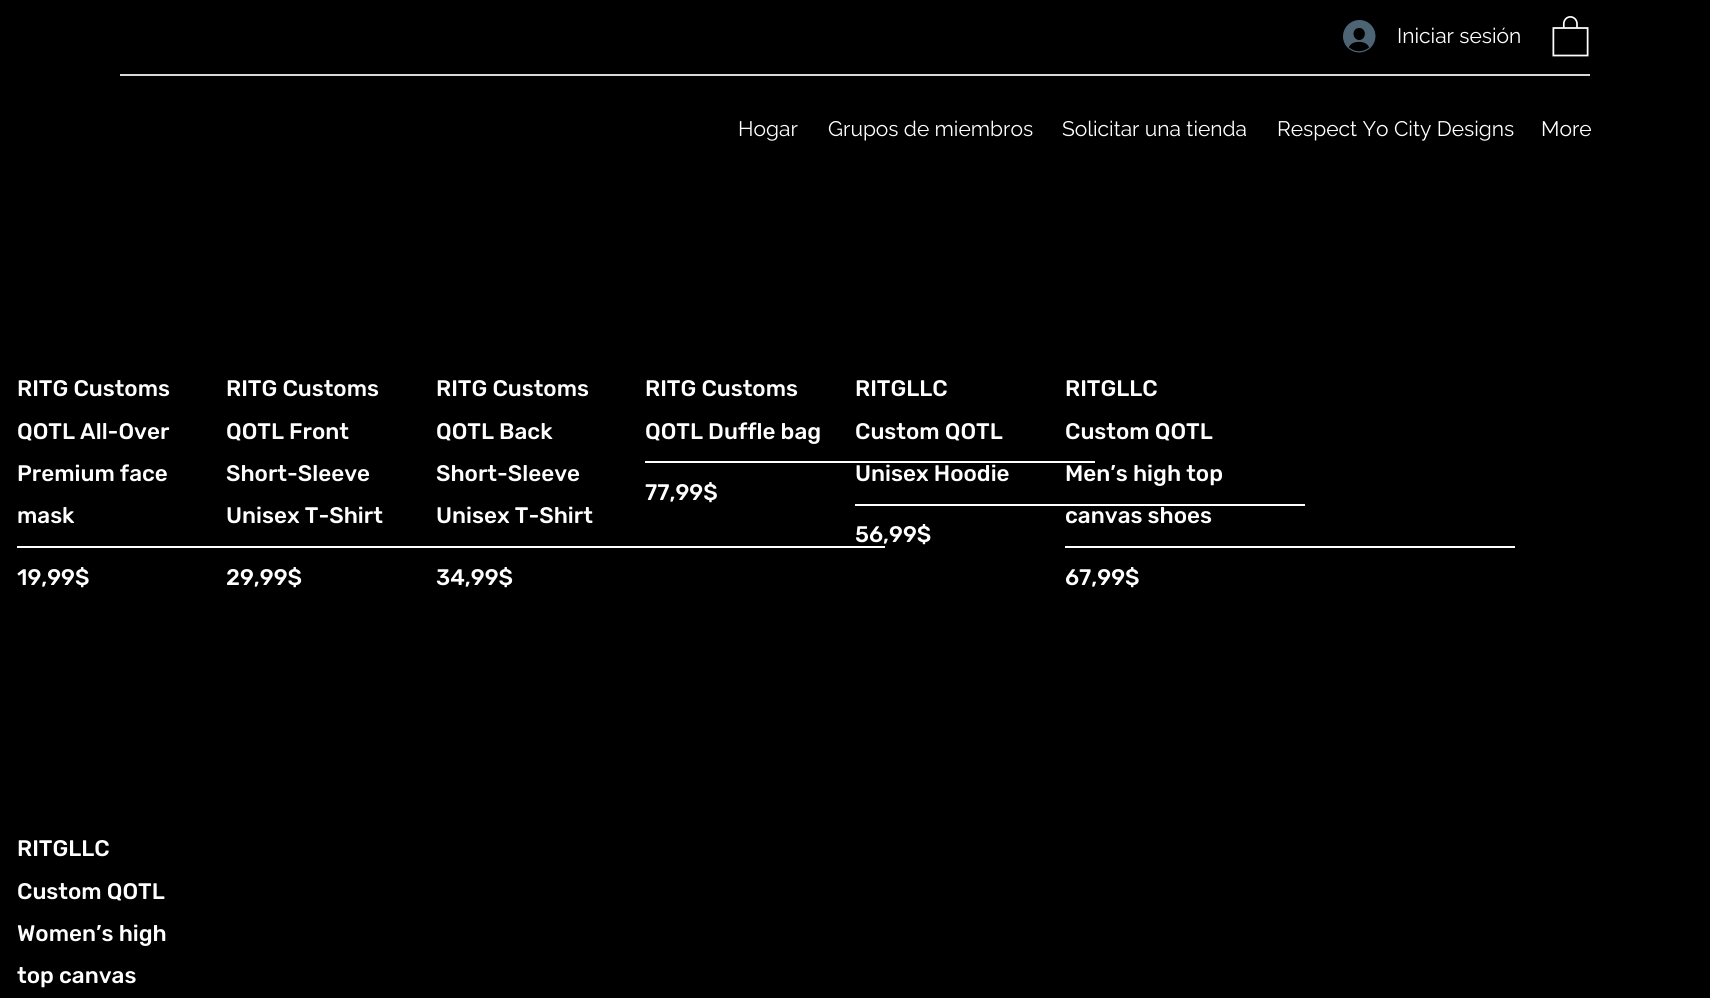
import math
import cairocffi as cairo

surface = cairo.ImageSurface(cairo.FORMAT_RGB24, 1710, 998)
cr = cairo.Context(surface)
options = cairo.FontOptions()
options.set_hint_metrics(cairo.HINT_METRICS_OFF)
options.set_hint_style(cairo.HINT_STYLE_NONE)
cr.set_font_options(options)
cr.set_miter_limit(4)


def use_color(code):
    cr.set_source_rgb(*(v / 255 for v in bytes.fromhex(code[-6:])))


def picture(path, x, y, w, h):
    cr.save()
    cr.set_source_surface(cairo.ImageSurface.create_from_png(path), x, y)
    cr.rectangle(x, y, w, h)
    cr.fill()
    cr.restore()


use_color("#000000")
cr.paint()
picture("img1.png", 1343, 20, 33, 33)
cr.select_font_face("Raleway")
cr.set_font_size(21)
use_color("#ffffff")
cr.move_to(1397, 43)
cr.show_text("Iniciar sesión")
picture("img2.png", 1552, 16, 37, 41)
use_color("#d9d9d9")
cr.rectangle(120, 74, 1470, 2)
cr.fill()
use_color("#ffffff")
cr.move_to(738, 136)
cr.show_text("Hogar")
cr.move_to(828, 136)
cr.show_text("Grupos de miembros")
cr.move_to(1062, 136)
cr.show_text("Solicitar una tienda")
cr.move_to(1277, 136)
cr.show_text("Respect Yo City Designs")
cr.move_to(1541, 136)
cr.show_text("More")
cr.select_font_face("Rubik Medium")
cr.set_font_size(22.5)
cr.move_to(17, 396)
cr.show_text("RITG Customs")
cr.move_to(17, 439)
cr.show_text("QOTL All-Over")
cr.move_to(17, 481)
cr.show_text("Premium face")
cr.move_to(17, 523)
cr.show_text("mask")
cr.rectangle(17, 546, 868, 2)
cr.fill()
cr.move_to(17, 585)
cr.show_text("19,99$")
cr.move_to(226, 396)
cr.show_text("RITG Customs")
cr.move_to(226, 439)
cr.show_text("QOTL Front")
cr.move_to(226, 481)
cr.show_text("Short-Sleeve")
cr.move_to(226, 523)
cr.show_text("Unisex T-Shirt")
cr.move_to(226, 585)
cr.show_text("29,99$")
cr.move_to(436, 396)
cr.show_text("RITG Customs")
cr.move_to(436, 439)
cr.show_text("QOTL Back")
cr.move_to(436, 481)
cr.show_text("Short-Sleeve")
cr.move_to(436, 523)
cr.show_text("Unisex T-Shirt")
cr.move_to(436, 585)
cr.show_text("34,99$")
cr.move_to(645, 396)
cr.show_text("RITG Customs")
cr.move_to(645, 439)
cr.show_text("QOTL Duffle bag")
cr.rectangle(645, 461, 450, 2)
cr.fill()
cr.move_to(645, 500)
cr.show_text("77,99$")
cr.move_to(855, 396)
cr.show_text("RITGLLC")
cr.move_to(855, 439)
cr.show_text("Custom QOTL")
cr.move_to(855, 481)
cr.show_text("Unisex Hoodie")
cr.rectangle(855, 504, 450, 2)
cr.fill()
cr.move_to(855, 542)
cr.show_text("56,99$")
cr.move_to(1065, 396)
cr.show_text("RITGLLC")
cr.move_to(1065, 439)
cr.show_text("Custom QOTL")
cr.move_to(1065, 481)
cr.show_text("Men’s high top")
cr.move_to(1065, 523)
cr.show_text("canvas shoes")
cr.rectangle(1065, 546, 450, 2)
cr.fill()
cr.move_to(1065, 585)
cr.show_text("67,99$")
cr.move_to(17, 856)
cr.show_text("RITGLLC")
cr.move_to(17, 899)
cr.show_text("Custom QOTL")
cr.move_to(17, 941)
cr.show_text("Women’s high")
cr.move_to(17, 983)
cr.show_text("top canvas")
surface.write_to_png("result.png")
